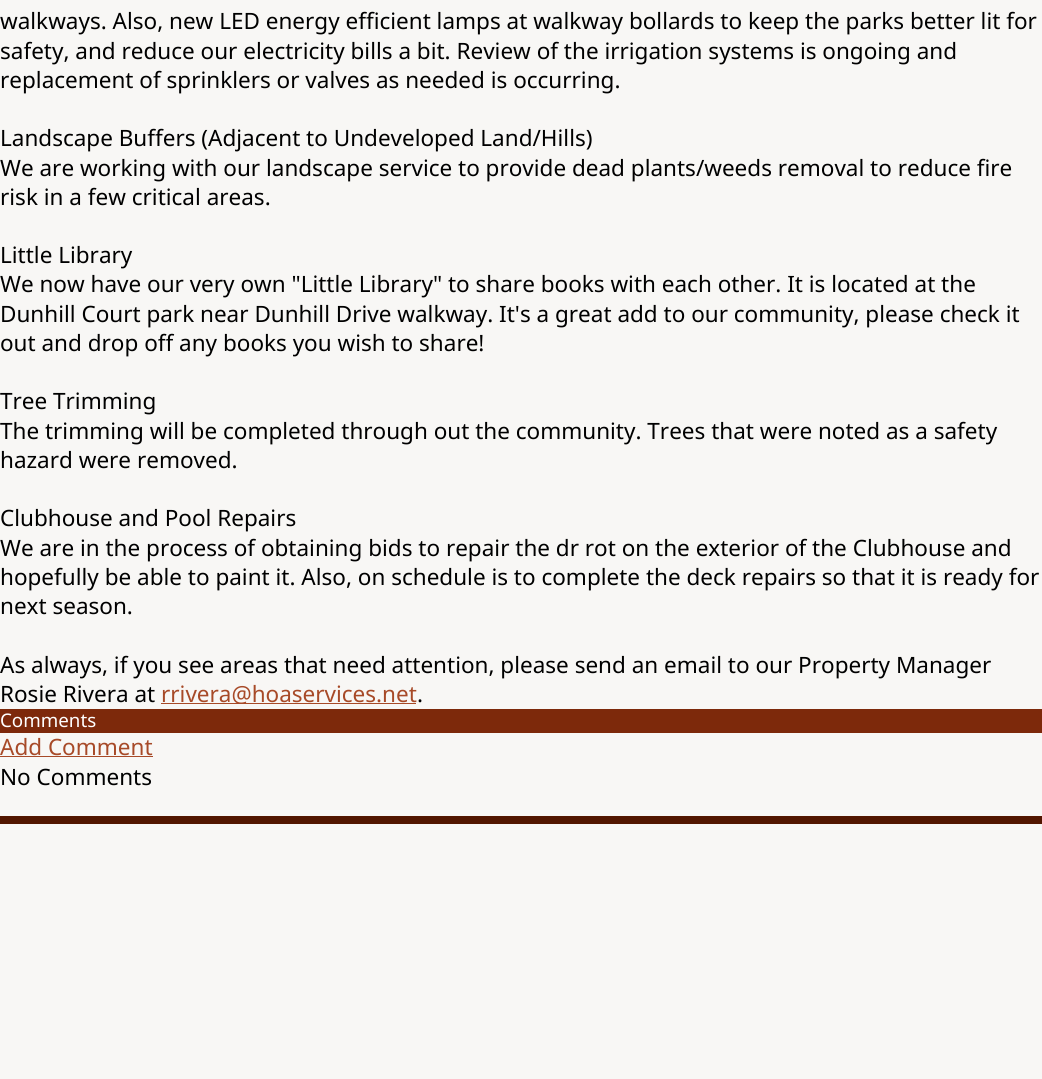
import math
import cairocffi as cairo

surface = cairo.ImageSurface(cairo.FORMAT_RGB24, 1042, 1079)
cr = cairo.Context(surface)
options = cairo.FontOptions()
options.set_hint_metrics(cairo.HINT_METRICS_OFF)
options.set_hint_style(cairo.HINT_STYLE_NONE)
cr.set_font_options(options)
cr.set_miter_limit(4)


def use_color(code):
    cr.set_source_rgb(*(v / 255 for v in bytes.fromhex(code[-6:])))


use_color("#f8f7f5")
cr.paint()
cr.select_font_face("Noto Sans")
cr.set_font_size(22.5)
use_color("#000000")
cr.move_to(0, 29)
cr.show_text("walkways. Also, new LED energy efficient lamps at walkway bollards to keep the parks better lit for")
cr.move_to(0, 59)
cr.show_text("safety, and reduce our electricity bills a bit. Review of the irrigation systems is ongoing and")
cr.move_to(0, 88)
cr.show_text("replacement of sprinklers or valves as needed is occurring.")
cr.move_to(0, 146)
cr.show_text("Landscape Buffers (Adjacent to Undeveloped Land/Hills)")
cr.move_to(0, 176)
cr.show_text("We are working with our landscape service to provide dead plants/weeds removal to reduce fire")
cr.move_to(0, 205)
cr.show_text("risk in a few critical areas.")
cr.move_to(0, 263)
cr.show_text("Little Library")
cr.move_to(0, 292)
cr.show_text("We now have our very own \"Little Library\" to share books with each other. It is located at the")
cr.move_to(0, 322)
cr.show_text("Dunhill Court park near Dunhill Drive walkway. It's a great add to our community, please check it")
cr.move_to(0, 351)
cr.show_text("out and drop off any books you wish to share!")
cr.move_to(0, 409)
cr.show_text("Tree Trimming")
cr.move_to(0, 439)
cr.show_text("The trimming will be completed through out the community. Trees that were noted as a safety")
cr.move_to(0, 468)
cr.show_text("hazard were removed.")
cr.move_to(0, 526)
cr.show_text("Clubhouse and Pool Repairs")
cr.move_to(0, 556)
cr.show_text("We are in the process of obtaining bids to repair the dr rot on the exterior of the Clubhouse and")
cr.move_to(0, 585)
cr.show_text("hopefully be able to paint it. Also, on schedule is to complete the deck repairs so that it is ready for")
cr.move_to(0, 614)
cr.show_text("next season.")
cr.move_to(0, 673)
cr.show_text("As always, if you see areas that need attention, please send an email to our Property Manager")
cr.move_to(0, 702)
cr.show_text("Rosie Rivera at")
use_color("#a74a28")
cr.rectangle(161, 703, 255, 1)
cr.fill()
cr.move_to(161, 702)
cr.show_text("rrivera@hoaservices.net")
use_color("#000000")
cr.move_to(417, 702)
cr.show_text(".")
use_color("#7d290b")
cr.rectangle(0, 709, 1042, 24)
cr.fill()
cr.set_font_size(18.75)
use_color("#ffffff")
cr.move_to(0, 727)
cr.show_text("Comments")
cr.set_font_size(22.5)
use_color("#a74a28")
cr.move_to(0, 755)
cr.show_text("Add Comment")
cr.rectangle(0, 756, 153, 1)
cr.fill()
use_color("#000000")
cr.move_to(0, 785)
cr.show_text("No Comments")
use_color("#521600")
cr.rectangle(0, 816, 1042, 8)
cr.fill()
surface.write_to_png("result.png")
